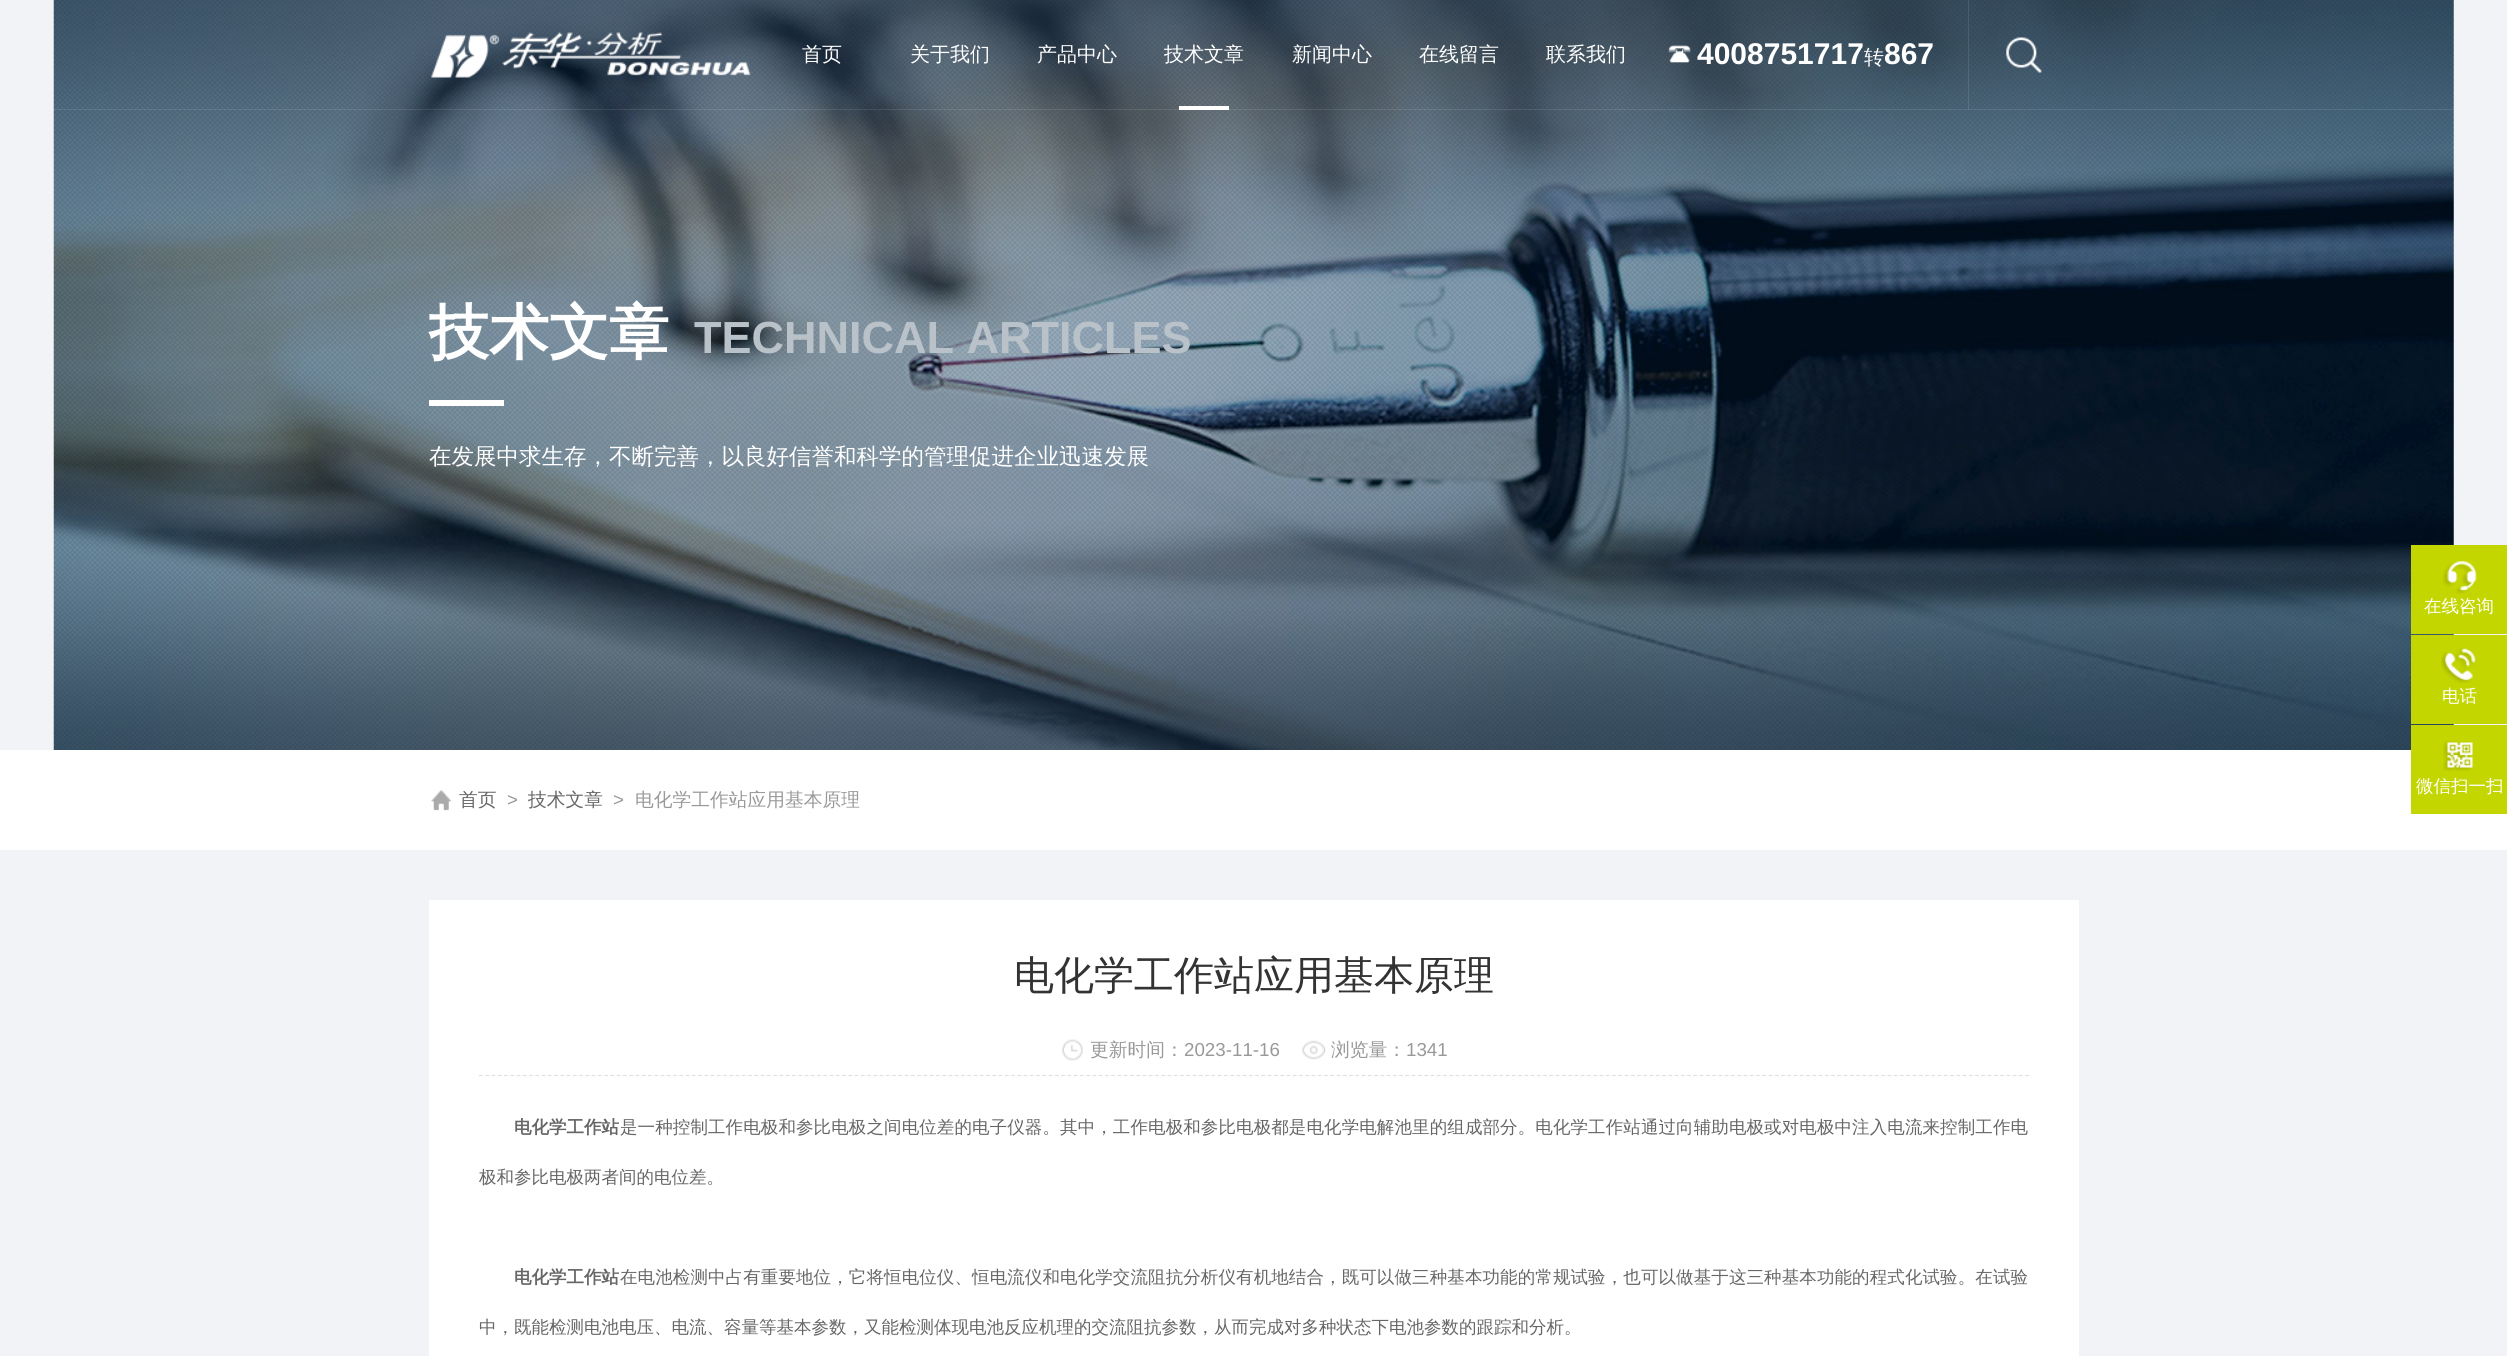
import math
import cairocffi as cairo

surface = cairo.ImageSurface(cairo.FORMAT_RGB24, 2507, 1356)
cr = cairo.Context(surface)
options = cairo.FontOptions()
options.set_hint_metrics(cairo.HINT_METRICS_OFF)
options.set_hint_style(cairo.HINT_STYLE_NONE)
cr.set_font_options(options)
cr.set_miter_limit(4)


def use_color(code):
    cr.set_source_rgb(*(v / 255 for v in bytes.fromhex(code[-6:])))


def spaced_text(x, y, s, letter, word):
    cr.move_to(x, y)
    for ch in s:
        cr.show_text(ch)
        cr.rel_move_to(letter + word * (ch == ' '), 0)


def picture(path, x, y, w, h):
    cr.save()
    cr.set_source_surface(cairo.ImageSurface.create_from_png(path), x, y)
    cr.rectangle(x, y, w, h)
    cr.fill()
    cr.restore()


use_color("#f2f3f6")
cr.paint()
picture("img4.png", 53, 0, 2401, 750)
cr.set_source_rgba(1, 1, 1, 0.1)
cr.rectangle(53, 109, 2401, 1)
cr.fill()
picture("img1.png", 431, 32, 320, 46)
cr.select_font_face("WenQuanYi Zen Hei Medium")
cr.set_font_size(20)
use_color("#ffffff")
cr.move_to(802, 61)
cr.show_text("首页")
cr.move_to(910, 61)
cr.show_text("关于我们")
cr.move_to(1037, 61)
cr.show_text("产品中心")
cr.move_to(1164, 61)
cr.show_text("技术文章")
cr.rectangle(1179, 106, 50, 4)
cr.fill()
cr.move_to(1292, 61)
cr.show_text("新闻中心")
cr.move_to(1419, 61)
cr.show_text("在线留言")
cr.move_to(1546, 61)
cr.show_text("联系我们")
picture("img2.png", 1668, 45, 23, 18)
cr.select_font_face("Liberation Sans", cairo.FONT_SLANT_NORMAL, cairo.FONT_WEIGHT_BOLD)
cr.set_font_size(30)
cr.move_to(1697, 64)
cr.show_text("4008751717")
cr.select_font_face("WenQuanYi Zen Hei Medium")
cr.set_font_size(20)
cr.move_to(1864, 64)
cr.show_text("转")
cr.select_font_face("Liberation Sans", cairo.FONT_SLANT_NORMAL, cairo.FONT_WEIGHT_BOLD)
cr.set_font_size(30)
cr.move_to(1884, 64)
cr.show_text("867")
picture("img3.png", 2006, 37, 36, 36)
cr.set_source_rgba(1, 1, 1, 0.1)
cr.rectangle(1968, 0, 1, 110)
cr.fill()
cr.select_font_face("WenQuanYi Zen Hei", cairo.FONT_SLANT_NORMAL, cairo.FONT_WEIGHT_BOLD)
cr.set_font_size(60)
use_color("#ffffff")
cr.move_to(429, 353)
cr.show_text("技术文章")
cr.select_font_face("Liberation Sans", cairo.FONT_SLANT_NORMAL, cairo.FONT_WEIGHT_BOLD)
cr.set_font_size(45)
use_color("#bac2c9")
cr.move_to(694, 353)
cr.show_text("TECHNICAL ARTICLES")
use_color("#ffffff")
cr.rectangle(429, 400, 75, 6)
cr.fill()
cr.select_font_face("WenQuanYi Zen Hei Medium")
cr.set_font_size(22.5)
cr.move_to(429, 464)
cr.show_text("在发展中求生存，不断完善，以良好信誉和科学的管理促进企业迅速发展")
use_color("#c3d600")
cr.rectangle(2411, 545, 96, 89)
cr.fill()
picture("img5.png", 2443, 561, 34, 33)
cr.set_font_size(17.5)
use_color("#ffffff")
cr.move_to(2424, 612)
cr.show_text("在线咨询")
use_color("#c3d600")
cr.rectangle(2411, 635, 96, 89)
cr.fill()
picture("img6.png", 2441, 648, 35, 35)
use_color("#ffffff")
cr.move_to(2442, 702)
cr.show_text("电话")
cr.rectangle(0, 750, 2507, 100)
cr.fill()
use_color("#c3d600")
cr.rectangle(2411, 725, 96, 89)
cr.fill()
picture("img7.png", 2443, 741, 30, 30)
use_color("#ffffff")
cr.move_to(2416, 792)
cr.show_text("微信扫一扫")
picture("img8.png", 431, 790, 21, 21)
cr.set_font_size(18.75)
use_color("#666666")
cr.move_to(459, 806)
cr.show_text("首页")
cr.select_font_face("Liberation Sans")
use_color("#999999")
cr.move_to(507, 806)
cr.show_text(">")
cr.select_font_face("WenQuanYi Zen Hei Medium")
use_color("#666666")
cr.move_to(528, 806)
cr.show_text("技术文章")
cr.select_font_face("Liberation Sans")
use_color("#999999")
cr.move_to(613, 806)
cr.show_text(">")
cr.select_font_face("WenQuanYi Zen Hei Medium")
cr.move_to(635, 806)
cr.show_text("电化学工作站应用基本原理")
use_color("#ffffff")
cr.rectangle(429, 900, 1650, 456)
cr.fill()
cr.set_font_size(40)
use_color("#333333")
cr.move_to(1014, 989)
cr.show_text("电化学工作站应用基本原理")
cr.new_path()
cr.move_to(479, 1075.5)
cr.line_to(2029, 1075.5)
use_color("#e0e0e0")
cr.set_line_width(1.2)
cr.set_dash([3.75, 2.51])
cr.stroke()
picture("img9.png", 1062, 1039, 21, 22)
cr.set_font_size(18.75)
use_color("#999999")
cr.move_to(1090, 1056)
cr.show_text("更新时间：")
cr.select_font_face("Liberation Sans")
cr.move_to(1184, 1056)
cr.show_text("2023-11-16")
picture("img10.png", 1302, 1040, 24, 20)
cr.select_font_face("WenQuanYi Zen Hei Medium")
cr.move_to(1331, 1056)
cr.show_text("浏览量：")
cr.select_font_face("Liberation Sans")
cr.move_to(1406, 1056)
cr.show_text("1341")
cr.select_font_face("WenQuanYi Zen Hei", cairo.FONT_SLANT_NORMAL, cairo.FONT_WEIGHT_BOLD)
cr.set_font_size(17.5)
use_color("#666666")
cr.move_to(514, 1133)
cr.show_text("电化学工作站")
cr.select_font_face("WenQuanYi Zen Hei Medium")
spaced_text(620, 1133, "是一种控制工作电极和参比电极之间电位差的电子仪器。其中，工作电极和参比电极都是电化学电解池里的组成部分。电化学工作站通过向辅助电极或对电极中注入电流来控制工作电", 0.1, 0)
cr.move_to(479, 1183)
cr.show_text("极和参比电极两者间的电位差。")
cr.select_font_face("WenQuanYi Zen Hei", cairo.FONT_SLANT_NORMAL, cairo.FONT_WEIGHT_BOLD)
cr.move_to(514, 1283)
cr.show_text("电化学工作站")
cr.select_font_face("WenQuanYi Zen Hei Medium")
spaced_text(620, 1283, "在电池检测中占有重要地位，它将恒电位仪、恒电流仪和电化学交流阻抗分析仪有机地结合，既可以做三种基本功能的常规试验，也可以做基于这三种基本功能的程式化试验。在试验", 0.1, 0)
cr.move_to(479, 1333)
cr.show_text("中，既能检测电池电压、电流、容量等基本参数，又能检测体现电池反应机理的交流阻抗参数，从而完成对多种状态下电池参数的跟踪和分析。")
surface.write_to_png("result.png")
